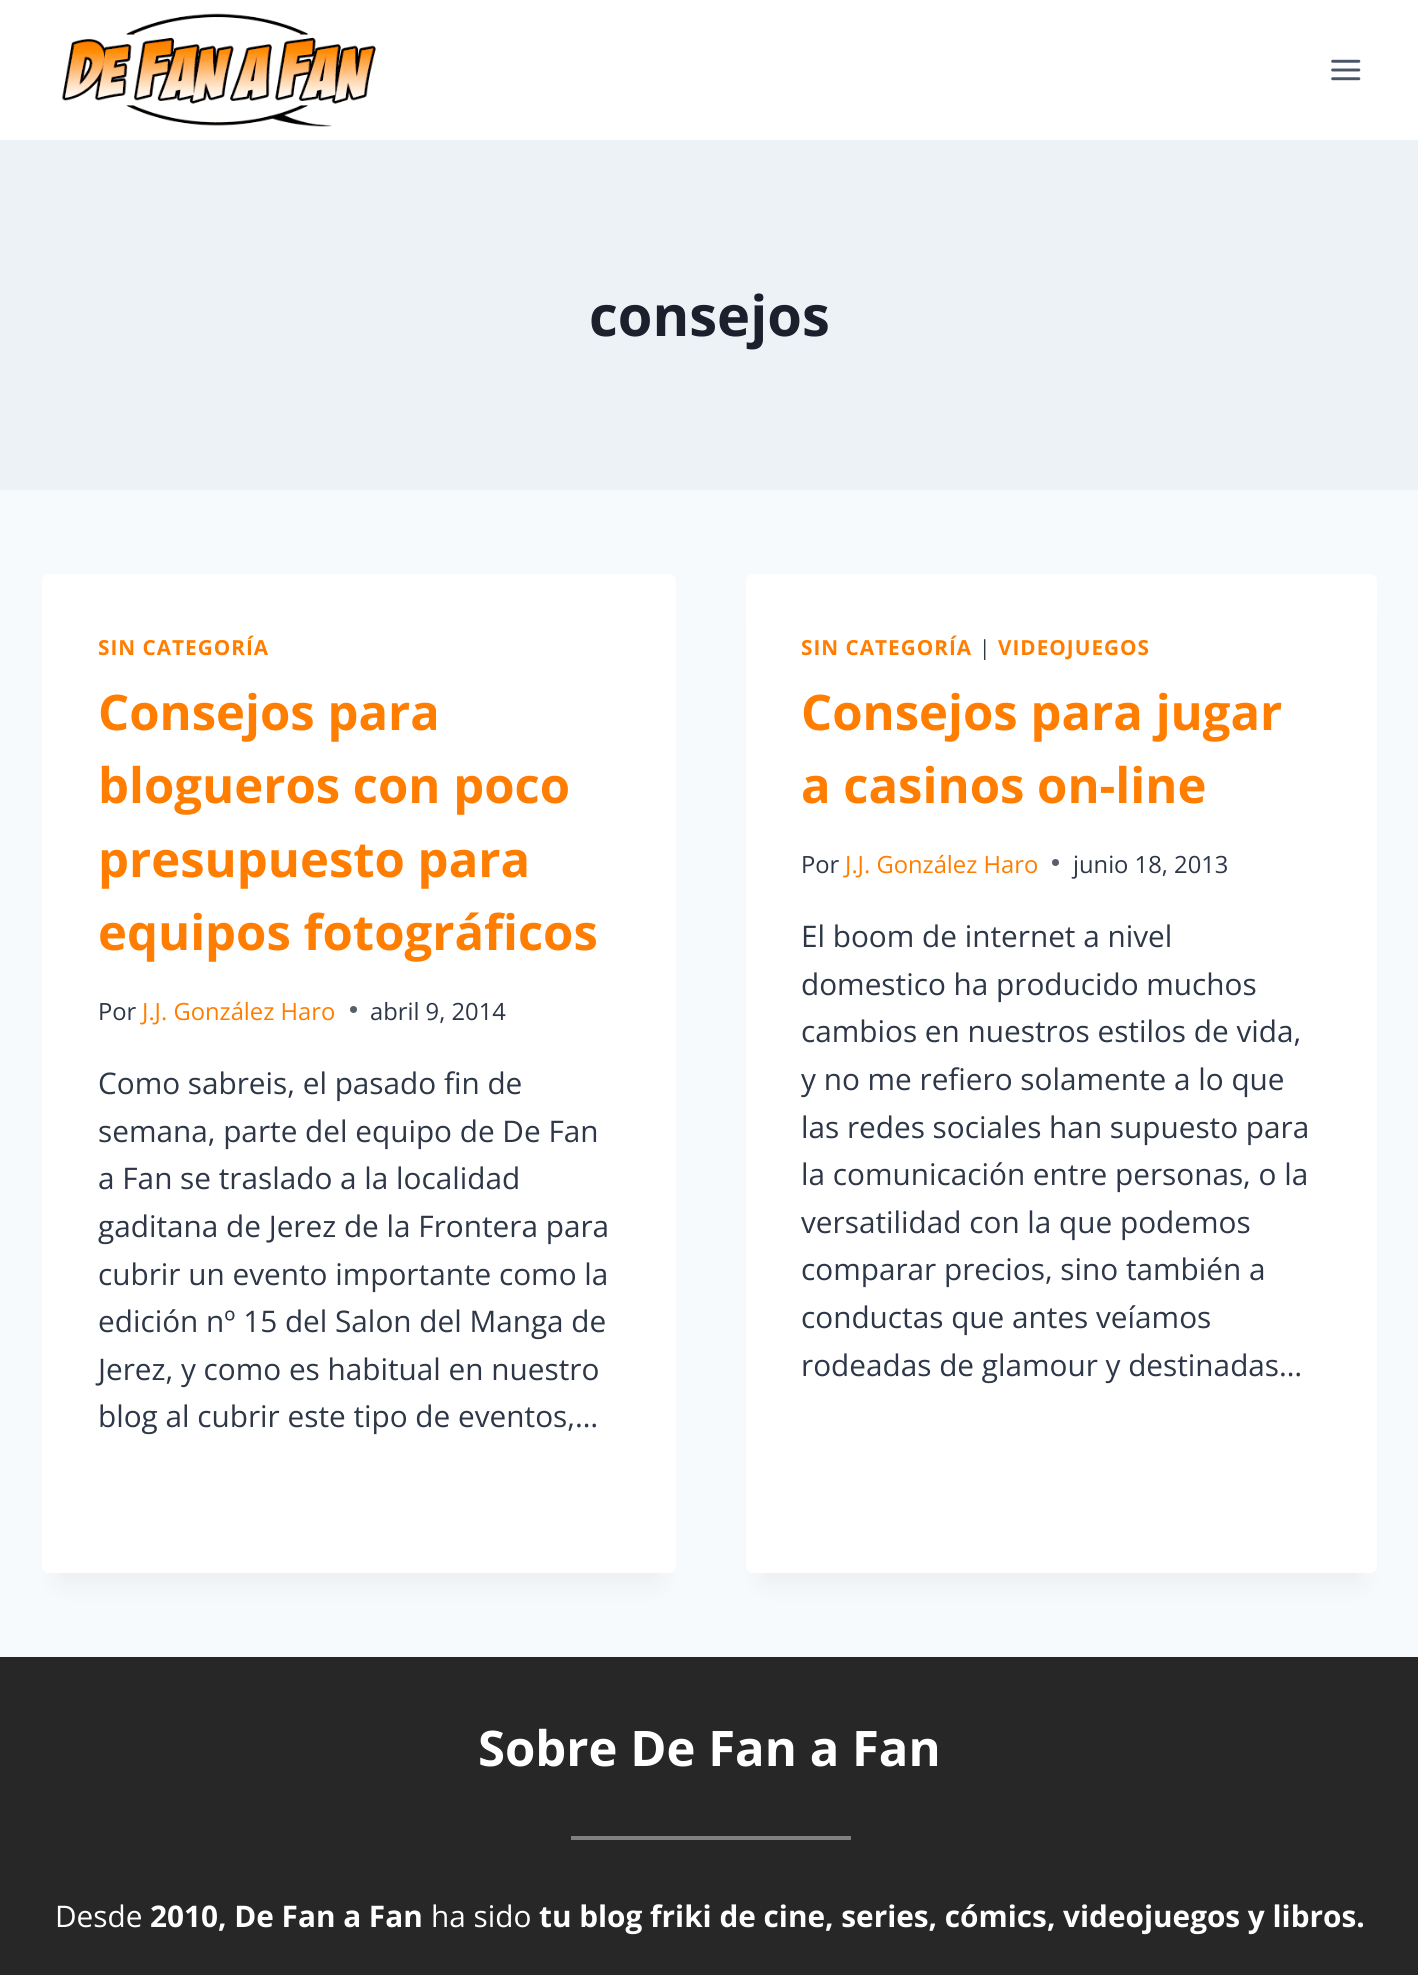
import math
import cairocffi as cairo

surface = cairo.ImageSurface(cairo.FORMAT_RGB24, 1418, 1975)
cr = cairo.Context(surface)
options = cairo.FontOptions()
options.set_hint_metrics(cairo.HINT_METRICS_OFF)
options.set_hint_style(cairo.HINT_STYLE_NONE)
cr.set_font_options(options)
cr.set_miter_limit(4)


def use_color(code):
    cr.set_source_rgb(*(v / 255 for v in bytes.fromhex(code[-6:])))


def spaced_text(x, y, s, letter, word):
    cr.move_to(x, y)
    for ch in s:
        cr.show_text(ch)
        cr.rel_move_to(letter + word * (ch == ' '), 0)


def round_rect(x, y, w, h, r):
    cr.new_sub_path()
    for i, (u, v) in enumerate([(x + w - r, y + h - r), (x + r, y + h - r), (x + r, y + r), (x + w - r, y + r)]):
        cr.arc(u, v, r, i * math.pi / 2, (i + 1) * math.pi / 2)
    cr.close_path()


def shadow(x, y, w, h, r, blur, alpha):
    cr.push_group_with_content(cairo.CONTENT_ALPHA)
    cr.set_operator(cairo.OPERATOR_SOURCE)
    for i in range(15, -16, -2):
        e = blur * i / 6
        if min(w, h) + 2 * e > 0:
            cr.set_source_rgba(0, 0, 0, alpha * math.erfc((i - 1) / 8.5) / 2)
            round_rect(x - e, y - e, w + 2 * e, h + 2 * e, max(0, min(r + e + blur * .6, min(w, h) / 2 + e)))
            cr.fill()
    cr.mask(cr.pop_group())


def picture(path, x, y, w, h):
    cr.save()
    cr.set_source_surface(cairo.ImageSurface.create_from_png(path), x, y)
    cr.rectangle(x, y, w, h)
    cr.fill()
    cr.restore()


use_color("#f7fafc")
cr.paint()
use_color("#ffffff")
cr.rectangle(0, 0, 1418, 140)
cr.fill()
picture("img1.png", 62, 13, 314, 114)
picture("img2.png", 1331, 59, 30, 22)
use_color("#edf2f7")
cr.rectangle(0, 140, 1418, 350)
cr.fill()
cr.select_font_face("Open Sans", cairo.FONT_SLANT_NORMAL, cairo.FONT_WEIGHT_BOLD)
cr.set_font_size(56)
use_color("#1a202c")
cr.move_to(589, 336)
cr.show_text("consejos")
use_color("#000000")
shadow(60, 618, 598, 964, 0, 13, 0.05)
use_color("#ffffff")
round_rect(42, 574, 634, 999, 7)
cr.fill()
cr.set_font_size(20.75)
use_color("#ff7d00")
spaced_text(98, 655, "SIN CATEGORÍA", 1, 0)
cr.set_font_size(49)
cr.move_to(98, 730)
cr.show_text("Consejos para")
cr.move_to(98, 803)
cr.show_text("blogueros con poco")
cr.move_to(98, 877)
cr.show_text("presupuesto para")
cr.move_to(98, 950)
cr.show_text("equipos fotográficos")
cr.select_font_face("Open Sans")
cr.set_font_size(23.75)
use_color("#2d3748")
cr.move_to(98, 1020)
cr.show_text("Por")
use_color("#ff7d00")
cr.move_to(142, 1020)
cr.show_text("J.J. González Haro")
use_color("#575f6d")
cr.new_path()
cr.arc(353.5, 1009.5, 3.5, 0, 2 * math.pi)
cr.fill()
use_color("#2d3748")
cr.move_to(370, 1020)
cr.show_text("abril 9, 2014")
cr.set_font_size(29.75)
cr.move_to(98, 1094)
cr.show_text("Como sabreis, el pasado fin de")
cr.move_to(98, 1142)
cr.show_text("semana, parte del equipo de De Fan")
cr.move_to(98, 1189)
cr.show_text("a Fan se traslado a la localidad")
cr.move_to(98, 1237)
cr.show_text("gaditana de Jerez de la Frontera para")
cr.move_to(98, 1285)
cr.show_text("cubrir un evento importante como la")
cr.move_to(98, 1332)
cr.show_text("edición nº 15 del Salon del Manga de")
cr.move_to(98, 1380)
cr.show_text("Jerez, y como es habitual en nuestro")
cr.move_to(98, 1427)
cr.show_text("blog al cubrir este tipo de eventos,…")
use_color("#000000")
shadow(763, 618, 597, 964, 0, 13, 0.05)
use_color("#ffffff")
round_rect(746, 574, 631, 999, 7)
cr.fill()
cr.select_font_face("Open Sans", cairo.FONT_SLANT_NORMAL, cairo.FONT_WEIGHT_BOLD)
cr.set_font_size(20.75)
use_color("#ff7d00")
spaced_text(801, 655, "SIN CATEGORÍA", 1, 0)
cr.select_font_face("Open Sans")
use_color("#2d3748")
spaced_text(979, 655, "|", 1, 0)
cr.select_font_face("Open Sans", cairo.FONT_SLANT_NORMAL, cairo.FONT_WEIGHT_BOLD)
use_color("#ff7d00")
spaced_text(998, 655, "VIDEOJUEGOS", 1, 0)
cr.set_font_size(49)
cr.move_to(801, 730)
cr.show_text("Consejos para jugar")
cr.move_to(801, 803)
cr.show_text("a casinos on-line")
cr.select_font_face("Open Sans")
cr.set_font_size(23.75)
use_color("#2d3748")
cr.move_to(801, 873)
cr.show_text("Por")
use_color("#ff7d00")
cr.move_to(845, 873)
cr.show_text("J.J. González Haro")
use_color("#575f6d")
cr.new_path()
cr.arc(1055.5, 862.5, 3.5, 0, 2 * math.pi)
cr.fill()
use_color("#2d3748")
cr.move_to(1073, 873)
cr.show_text("junio 18, 2013")
cr.set_font_size(29.75)
cr.move_to(801, 947)
cr.show_text("El boom de internet a nivel")
cr.move_to(801, 995)
cr.show_text("domestico ha producido muchos")
cr.move_to(801, 1042)
cr.show_text("cambios en nuestros estilos de vida,")
cr.move_to(801, 1090)
cr.show_text("y no me refiero solamente a lo que")
cr.move_to(801, 1138)
cr.show_text("las redes sociales han supuesto para")
cr.move_to(801, 1185)
cr.show_text("la comunicación entre personas, o la")
cr.move_to(801, 1233)
cr.show_text("versatilidad con la que podemos")
cr.move_to(801, 1280)
cr.show_text("comparar precios, sino también a")
cr.move_to(801, 1328)
cr.show_text("conductas que antes veíamos")
cr.move_to(801, 1376)
cr.show_text("rodeadas de glamour y destinadas…")
use_color("#272727")
cr.rectangle(0, 1657, 1418, 318)
cr.fill()
cr.select_font_face("Open Sans", cairo.FONT_SLANT_NORMAL, cairo.FONT_WEIGHT_BOLD)
cr.set_font_size(49)
use_color("#ffffff")
cr.move_to(478, 1766)
cr.show_text("Sobre De Fan a Fan")
use_color("#808080")
cr.rectangle(571, 1836, 280, 4)
cr.fill()
cr.select_font_face("Open Sans")
cr.set_font_size(29.75)
use_color("#ffffff")
cr.move_to(55, 1927)
cr.show_text("Desde")
cr.select_font_face("Open Sans", cairo.FONT_SLANT_NORMAL, cairo.FONT_WEIGHT_BOLD)
cr.move_to(150, 1927)
cr.show_text("2010, De Fan a Fan")
cr.select_font_face("Open Sans")
cr.move_to(431, 1927)
cr.show_text("ha sido")
cr.select_font_face("Open Sans", cairo.FONT_SLANT_NORMAL, cairo.FONT_WEIGHT_BOLD)
cr.move_to(539, 1927)
cr.show_text("tu blog friki de cine, series, cómics, videojuegos y libros.")
surface.write_to_png("result.png")
